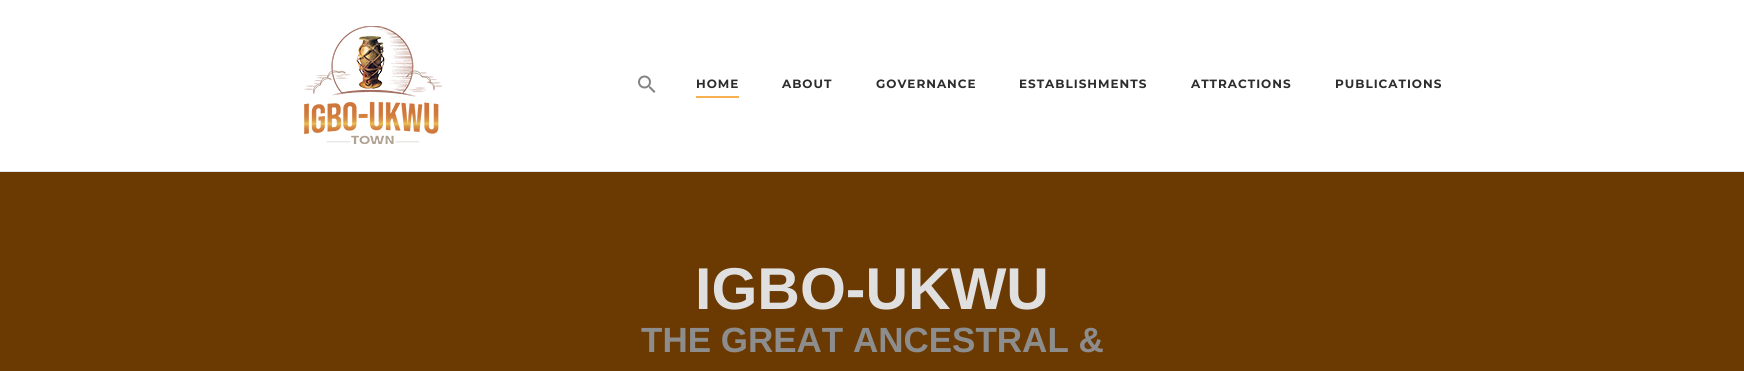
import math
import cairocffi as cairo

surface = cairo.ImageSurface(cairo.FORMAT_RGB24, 1744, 371)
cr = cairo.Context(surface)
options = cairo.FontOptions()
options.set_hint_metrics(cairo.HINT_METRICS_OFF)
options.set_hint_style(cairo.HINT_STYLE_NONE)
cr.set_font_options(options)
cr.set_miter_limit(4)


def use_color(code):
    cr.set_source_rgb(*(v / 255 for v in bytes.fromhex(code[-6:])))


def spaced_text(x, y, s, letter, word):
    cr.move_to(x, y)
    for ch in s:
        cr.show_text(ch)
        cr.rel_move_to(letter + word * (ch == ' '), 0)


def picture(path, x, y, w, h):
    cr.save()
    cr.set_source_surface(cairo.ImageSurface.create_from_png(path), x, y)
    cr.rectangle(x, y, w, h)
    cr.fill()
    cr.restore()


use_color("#6b3a03")
cr.paint()
use_color("#ffffff")
cr.rectangle(0, 0, 1744, 171)
cr.fill()
use_color("#e6e6e6")
cr.rectangle(0, 171, 1744, 1)
cr.fill()
picture("img1.png", 304, 26, 138, 118)
picture("img2.png", 638, 75, 18, 18)
use_color("#f7b151")
cr.rectangle(696, 96, 43, 2)
cr.fill()
cr.select_font_face("Montserrat", cairo.FONT_SLANT_NORMAL, cairo.FONT_WEIGHT_BOLD)
cr.set_font_size(12)
use_color("#2d2d2d")
spaced_text(696, 88, "HOME", 1, 0)
spaced_text(782, 88, "ABOUT", 1, 0)
spaced_text(876, 88, "GOVERNANCE", 1, 0)
spaced_text(1019, 88, "ESTABLISHMENTS", 1, 0)
spaced_text(1191, 88, "ATTRACTIONS", 1, 0)
spaced_text(1335, 88, "PUBLICATIONS", 1, 0)
cr.select_font_face("Liberation Sans", cairo.FONT_SLANT_NORMAL, cairo.FONT_WEIGHT_BOLD)
cr.set_font_size(59)
use_color("#e0e0e0")
cr.move_to(695, 309)
cr.show_text("IGBO-UKWU")
cr.set_font_size(35)
use_color("#8d8d8d")
cr.move_to(641, 352)
cr.show_text("THE GREAT ANCESTRAL &")
surface.write_to_png("result.png")
